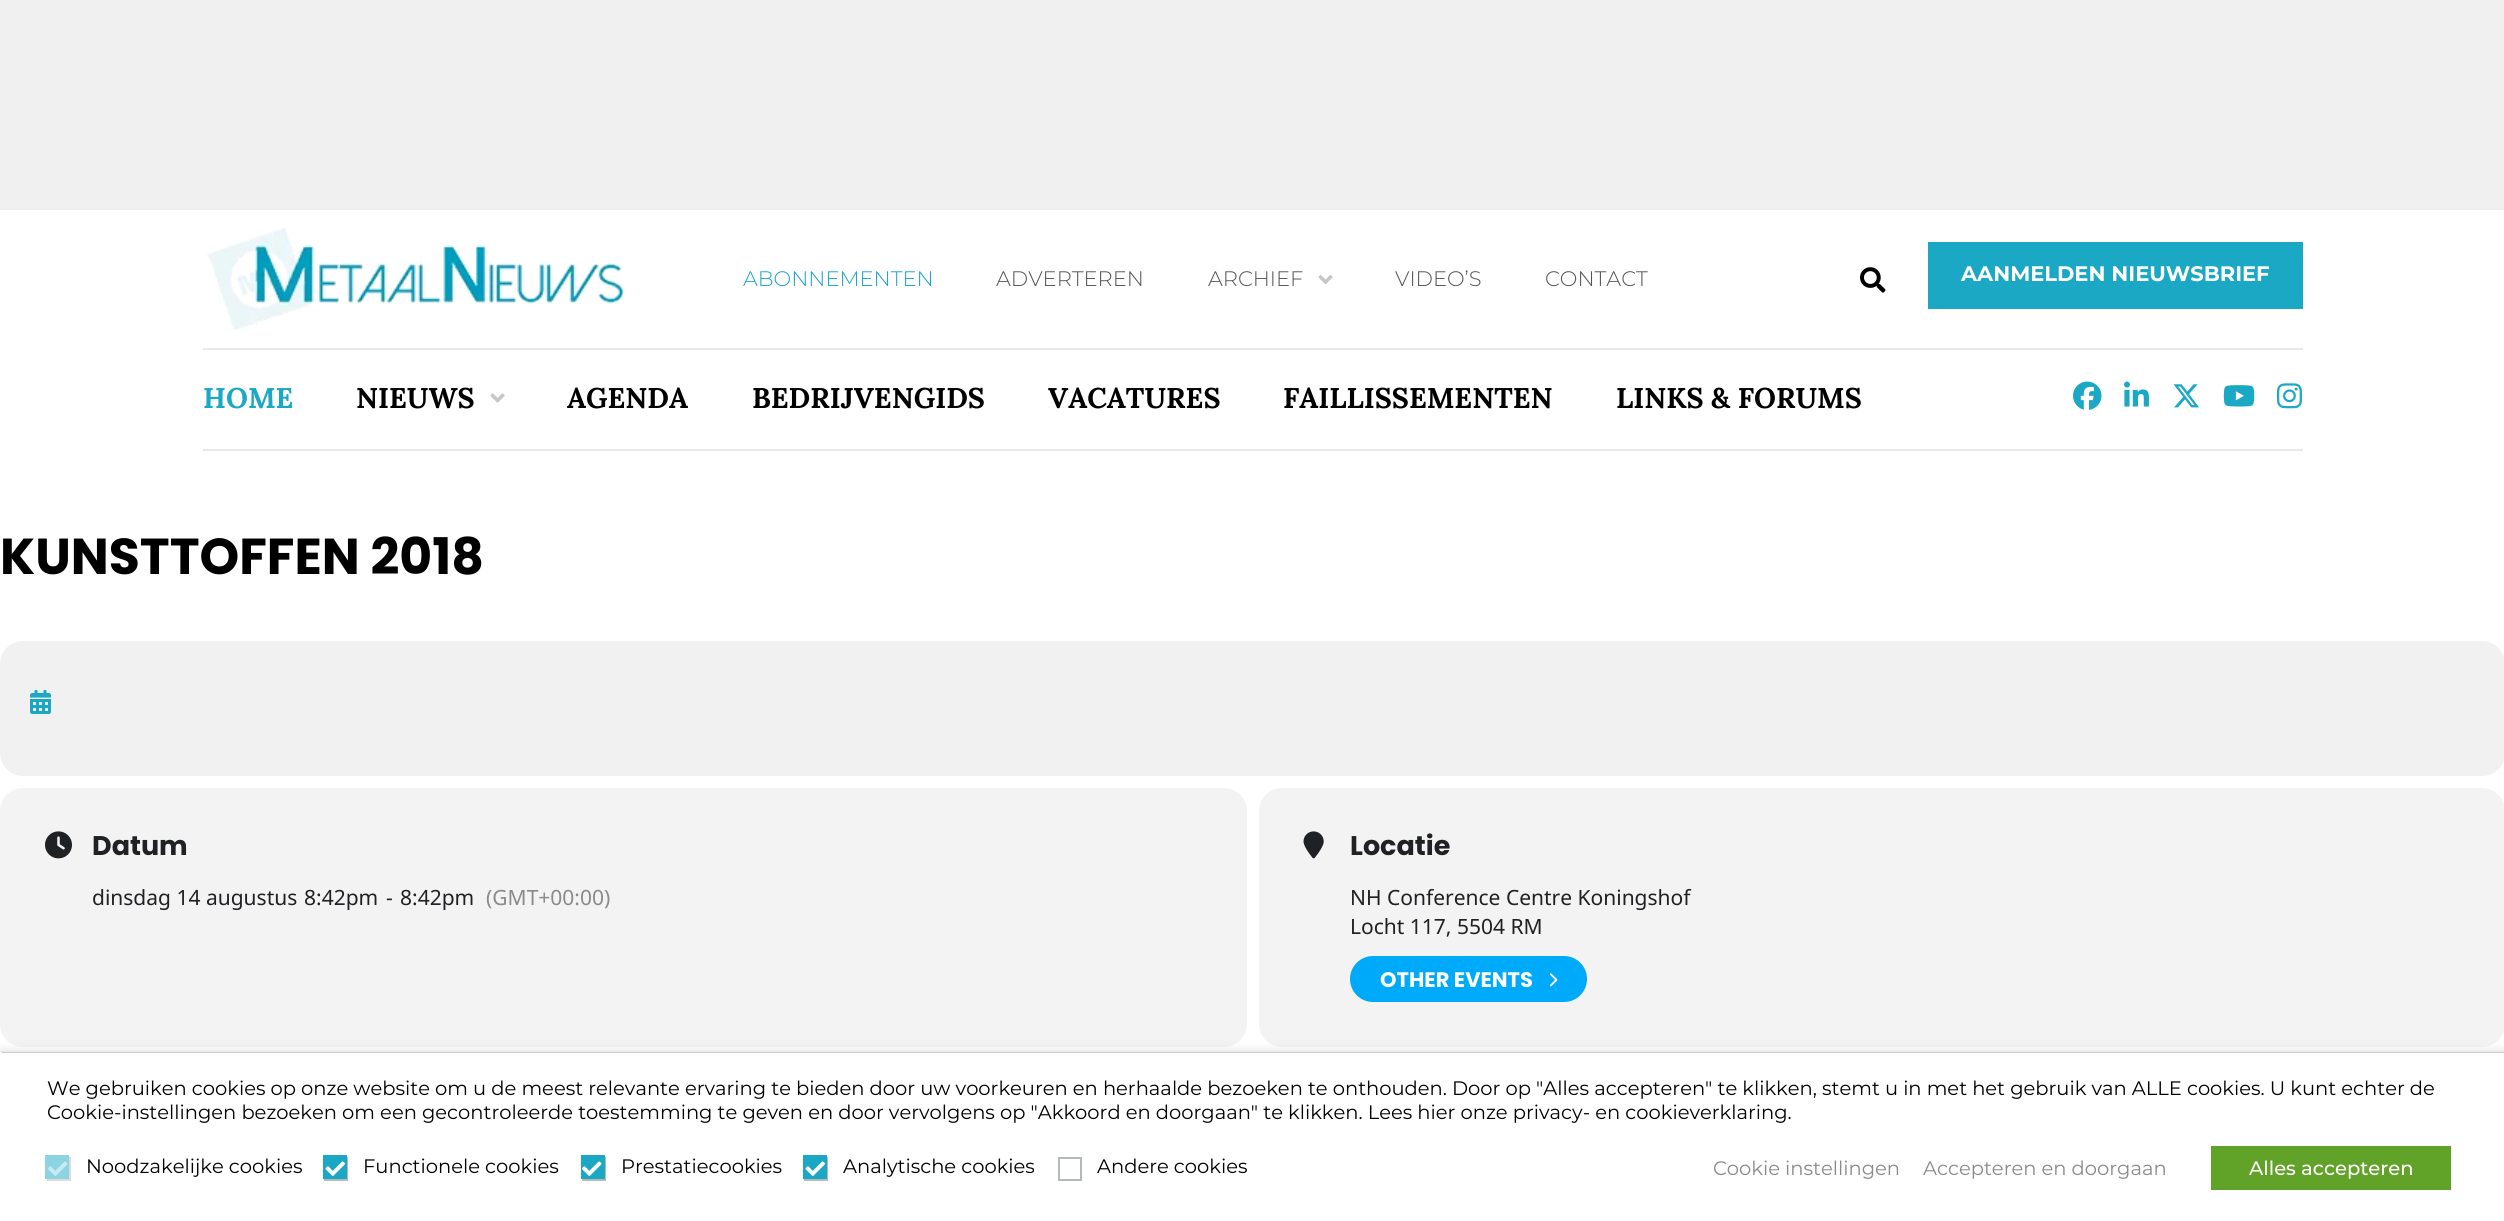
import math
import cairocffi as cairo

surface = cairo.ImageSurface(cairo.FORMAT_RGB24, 2504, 1221)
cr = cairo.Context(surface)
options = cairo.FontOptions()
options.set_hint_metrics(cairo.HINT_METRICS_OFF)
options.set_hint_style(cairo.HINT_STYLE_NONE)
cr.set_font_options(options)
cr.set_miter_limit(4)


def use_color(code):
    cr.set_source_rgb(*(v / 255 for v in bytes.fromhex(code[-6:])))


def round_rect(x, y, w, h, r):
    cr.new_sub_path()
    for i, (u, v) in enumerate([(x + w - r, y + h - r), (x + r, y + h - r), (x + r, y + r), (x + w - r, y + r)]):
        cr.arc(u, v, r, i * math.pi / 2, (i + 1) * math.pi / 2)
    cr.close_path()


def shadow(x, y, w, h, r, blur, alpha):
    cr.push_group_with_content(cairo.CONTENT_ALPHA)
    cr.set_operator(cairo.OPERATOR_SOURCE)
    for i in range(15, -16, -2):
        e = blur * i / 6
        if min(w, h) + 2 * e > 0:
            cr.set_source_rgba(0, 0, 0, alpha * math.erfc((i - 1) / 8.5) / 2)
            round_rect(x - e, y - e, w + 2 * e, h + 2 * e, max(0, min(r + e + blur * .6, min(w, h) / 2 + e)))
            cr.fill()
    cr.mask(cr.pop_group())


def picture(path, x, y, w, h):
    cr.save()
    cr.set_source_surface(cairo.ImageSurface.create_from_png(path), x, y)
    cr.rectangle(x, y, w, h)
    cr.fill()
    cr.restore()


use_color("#ffffff")
cr.paint()
use_color("#f0f0f0")
cr.rectangle(0, 0, 2504, 210)
cr.fill()
use_color("#e9e9e9")
cr.rectangle(203, 348, 2100, 2)
cr.fill()
picture("img1.png", 207, 227, 416, 103)
cr.select_font_face("Montserrat Light")
cr.set_font_size(21)
use_color("#1ba8c4")
cr.move_to(743, 286)
cr.show_text("ABONNEMENTEN")
use_color("#555555")
cr.move_to(996, 286)
cr.show_text("ADVERTEREN")
cr.move_to(1208, 286)
cr.show_text("ARCHIEF")
picture("img2.png", 1318, 275, 15, 9)
cr.move_to(1395, 286)
cr.show_text("VIDEO’S")
cr.move_to(1545, 286)
cr.show_text("CONTACT")
picture("img3.png", 1860, 267, 26, 26)
use_color("#1ba8c4")
cr.rectangle(1928, 242, 375, 67)
cr.fill()
cr.select_font_face("Montserrat", cairo.FONT_SLANT_NORMAL, cairo.FONT_WEIGHT_BOLD)
use_color("#ffffff")
cr.move_to(1961, 281)
cr.show_text("AANMELDEN NIEUWSBRIEF")
use_color("#e9e9e9")
cr.rectangle(203, 449, 2100, 2)
cr.fill()
cr.select_font_face("Lora", cairo.FONT_SLANT_NORMAL, cairo.FONT_WEIGHT_BOLD)
cr.set_font_size(28.5)
use_color("#1ba8c4")
cr.move_to(203, 408)
cr.show_text("HOME")
use_color("#000000")
cr.move_to(356, 408)
cr.show_text("NIEUWS")
picture("img4.png", 490, 393, 15, 10)
cr.move_to(567, 408)
cr.show_text("AGENDA")
cr.move_to(752, 408)
cr.show_text("BEDRIJVENGIDS")
cr.move_to(1048, 408)
cr.show_text("VACATURES")
cr.move_to(1283, 408)
cr.show_text("FAILLISSEMENTEN")
cr.move_to(1616, 408)
cr.show_text("LINKS & FORUMS")
picture("img5.png", 2073, 381, 29, 29)
picture("img6.png", 2124, 381, 25, 26)
picture("img7.png", 2173, 384, 26, 24)
picture("img8.png", 2223, 385, 32, 22)
picture("img9.png", 2277, 383, 25, 26)
cr.select_font_face("Poppins", cairo.FONT_SLANT_NORMAL, cairo.FONT_WEIGHT_BOLD)
cr.set_font_size(50.5)
cr.move_to(0, 574)
cr.show_text("KUNSTTOFFEN 2018")
use_color("#f1f1f1")
round_rect(0, 641, 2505, 135, 23)
cr.fill()
picture("img10.png", 30, 690, 21, 24)
use_color("#f3f3f3")
round_rect(0, 788, 1247, 259, 23)
cr.fill()
picture("img11.png", 45, 831, 27, 28)
cr.set_font_size(27)
use_color("#202124")
cr.move_to(92, 855)
cr.show_text("Datum")
cr.select_font_face("Noto Sans")
cr.set_font_size(21)
cr.move_to(92, 905)
cr.show_text("dinsdag 14 augustus")
cr.move_to(304, 905)
cr.show_text("8:42pm")
cr.move_to(386, 905)
cr.show_text("-")
cr.move_to(400, 905)
cr.show_text("8:42pm")
use_color("#8a8a8c")
cr.move_to(486, 905)
cr.show_text("(GMT+00:00)")
use_color("#f3f3f3")
round_rect(1259, 788, 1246, 259, 23)
cr.fill()
picture("img12.png", 1303, 831, 21, 28)
cr.select_font_face("Poppins", cairo.FONT_SLANT_NORMAL, cairo.FONT_WEIGHT_BOLD)
cr.set_font_size(27)
use_color("#202124")
cr.move_to(1350, 855)
cr.show_text("Locatie")
cr.select_font_face("Noto Sans")
cr.set_font_size(21)
cr.move_to(1350, 905)
cr.show_text("NH Conference Centre Koningshof")
cr.move_to(1350, 934)
cr.show_text("Locht 117, 5504 RM")
use_color("#00aafb")
round_rect(1350, 956, 237, 46, 23)
cr.fill()
cr.select_font_face("Poppins", cairo.FONT_SLANT_NORMAL, cairo.FONT_WEIGHT_BOLD)
use_color("#ffffff")
cr.move_to(1380, 987)
cr.show_text("OTHER EVENTS")
picture("img13.png", 1549, 973, 9, 14)
use_color("#000000")
shadow(0, 1059, 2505, 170, 0, 7.5, 0.5)
use_color("#ffffff")
cr.rectangle(0, 1052, 2504, 169)
cr.fill()
use_color("#cccccc")
cr.new_path()
cr.move_to(0, 1052)
cr.line_to(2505, 1052)
cr.line_to(2504, 1053)
cr.line_to(2, 1053)
cr.close_path()
cr.fill()
cr.set_source_rgba(1, 1, 1, 0.9)
cr.new_path()
cr.move_to(0, 1221)
cr.line_to(0, 1052)
cr.line_to(2, 1053)
cr.line_to(2, 1220)
cr.close_path()
cr.fill()
cr.select_font_face("Montserrat")
cr.set_font_size(19.5)
use_color("#000000")
cr.move_to(47, 1095)
cr.show_text("We gebruiken cookies op onze website om u de meest relevante ervaring te bieden door uw voorkeuren en herhaalde bezoeken te onthouden. Door op \"Alles accepteren\" te klikken, stemt u in met het gebruik van ALLE cookies. U kunt echter de")
cr.move_to(47, 1119)
cr.show_text("Cookie-instellingen bezoeken om een gecontroleerde toestemming te geven en door vervolgens op \"Akkoord en doorgaan\" te klikken. Lees hier onze privacy- en cookieverklaring.")
cr.rectangle(48, 1158, 22, 22)
use_color("#dadcdf")
cr.stroke()
use_color("#8dd4e2")
cr.rectangle(45, 1155, 24, 24)
cr.fill()
picture("img14.png", 48, 1161, 20, 15)
use_color("#000000")
cr.move_to(86, 1173)
cr.show_text("Noodzakelijke cookies")
cr.rectangle(325, 1158, 22, 22)
use_color("#b4b9be")
cr.stroke()
use_color("#1ba8c4")
cr.rectangle(323, 1155, 24, 24)
cr.fill()
picture("img15.png", 325, 1161, 20, 15)
use_color("#000000")
cr.move_to(363, 1173)
cr.show_text("Functionele cookies")
cr.rectangle(583, 1158, 22, 22)
use_color("#b4b9be")
cr.stroke()
use_color("#1ba8c4")
cr.rectangle(581, 1155, 24, 24)
cr.fill()
picture("img16.png", 582, 1161, 20, 15)
use_color("#000000")
cr.move_to(621, 1173)
cr.show_text("Prestatiecookies")
cr.rectangle(805, 1158, 22, 22)
use_color("#b4b9be")
cr.stroke()
use_color("#1ba8c4")
cr.rectangle(803, 1155, 24, 24)
cr.fill()
picture("img15.png", 805, 1161, 20, 15)
use_color("#000000")
cr.move_to(843, 1173)
cr.show_text("Analytische cookies")
cr.rectangle(1059, 1158, 22, 22)
use_color("#b4b9be")
cr.stroke()
use_color("#000000")
cr.move_to(1097, 1173)
cr.show_text("Andere cookies")
use_color("#8a8a8c")
cr.move_to(1713, 1175)
cr.show_text("Cookie instellingen")
cr.move_to(1923, 1175)
cr.show_text("Accepteren en doorgaan")
use_color("#61a229")
cr.rectangle(2211, 1146, 240, 44)
cr.fill()
cr.select_font_face("Montserrat Medium")
use_color("#ffffff")
cr.move_to(2249, 1175)
cr.show_text("Alles accepteren")
surface.write_to_png("result.png")
